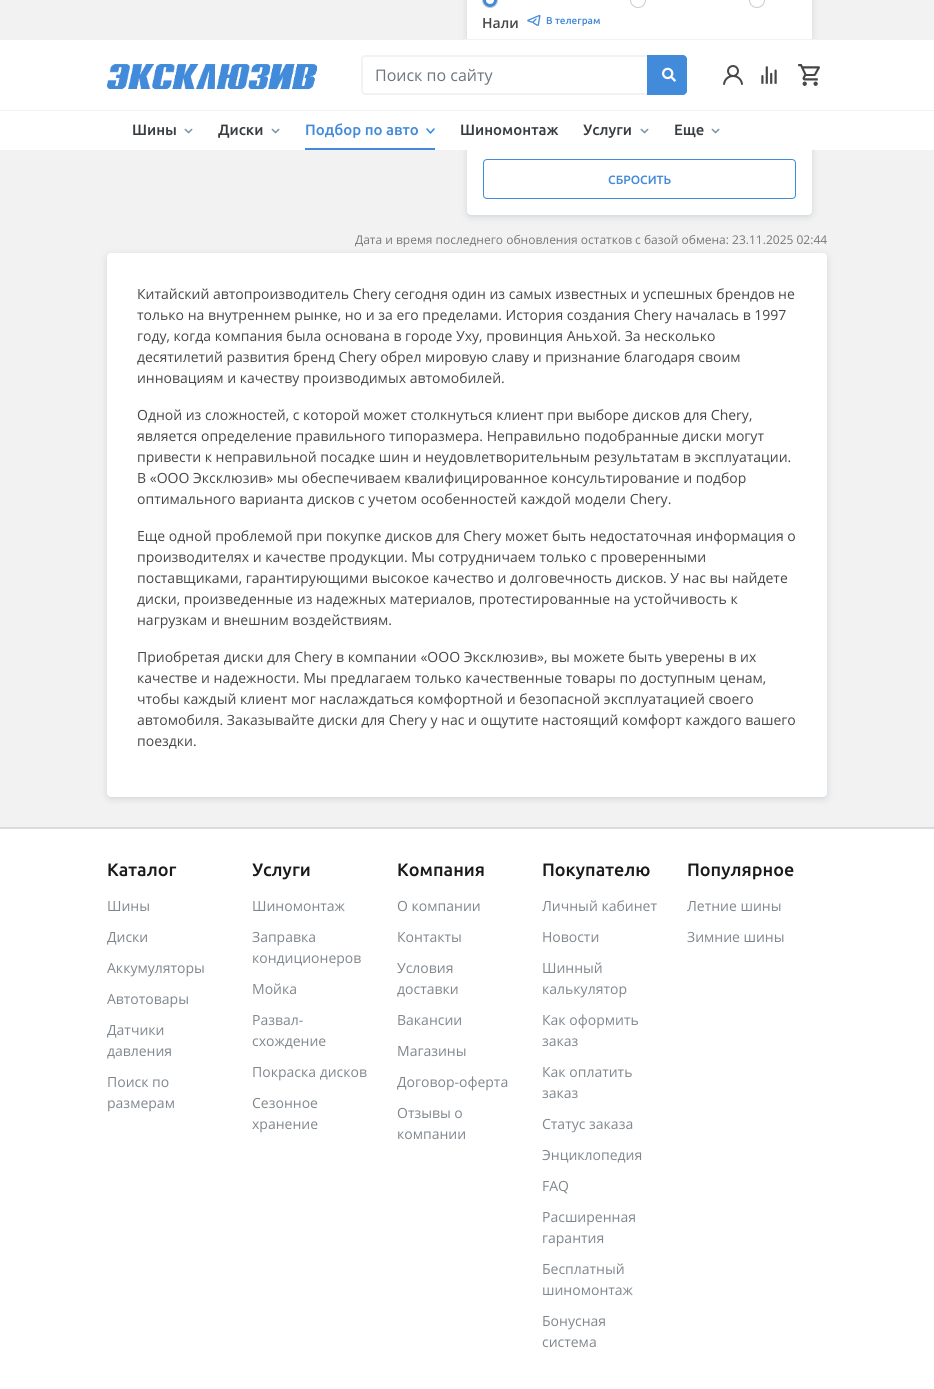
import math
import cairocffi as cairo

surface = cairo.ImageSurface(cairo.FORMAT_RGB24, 934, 1389)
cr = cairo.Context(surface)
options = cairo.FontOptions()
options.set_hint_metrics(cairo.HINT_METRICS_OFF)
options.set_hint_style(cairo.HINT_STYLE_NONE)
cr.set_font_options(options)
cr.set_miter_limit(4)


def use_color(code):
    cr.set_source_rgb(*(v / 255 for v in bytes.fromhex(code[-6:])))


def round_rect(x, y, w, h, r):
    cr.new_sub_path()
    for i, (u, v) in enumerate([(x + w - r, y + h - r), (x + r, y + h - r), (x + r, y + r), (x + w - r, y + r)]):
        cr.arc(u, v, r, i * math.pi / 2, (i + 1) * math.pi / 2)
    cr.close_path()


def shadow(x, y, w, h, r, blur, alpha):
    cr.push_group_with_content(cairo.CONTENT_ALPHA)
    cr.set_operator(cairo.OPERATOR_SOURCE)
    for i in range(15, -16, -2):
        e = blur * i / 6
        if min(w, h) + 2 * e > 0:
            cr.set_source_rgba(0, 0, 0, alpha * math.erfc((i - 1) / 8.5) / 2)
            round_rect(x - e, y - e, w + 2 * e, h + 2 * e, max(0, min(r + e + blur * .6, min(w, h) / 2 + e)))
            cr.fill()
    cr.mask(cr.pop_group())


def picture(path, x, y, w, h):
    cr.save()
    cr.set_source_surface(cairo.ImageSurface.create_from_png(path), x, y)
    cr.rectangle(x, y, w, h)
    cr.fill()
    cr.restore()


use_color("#f2f2f2")
cr.paint()
use_color("#495b6a")
shadow(467, -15, 345, 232, 4, 3.5, 0.2)
use_color("#ffffff")
round_rect(467, -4, 345, 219, 4)
cr.fill()
picture("img1.png", 527, 14, 14, 12)
cr.select_font_face("Ubuntu Medium")
cr.set_font_size(10)
use_color("#428ada")
cr.move_to(546, 24)
cr.show_text("В телеграм")
use_color("#ffffff")
cr.rectangle(0, 40, 934, 110)
cr.fill()
use_color("#f2f2f2")
cr.rectangle(462, 39, 355, 1)
cr.fill()
cr.rectangle(0, 110, 934, 1)
cr.fill()
picture("img2.png", 107, 64, 210, 26)
cr.new_path()
cr.move_to(365, 56)
cr.line_to(650, 56)
cr.line_to(650, 94)
cr.line_to(365, 94)
cr.curve_to(363.5, 94, 362, 92.5, 362, 91)
cr.line_to(362, 59)
cr.curve_to(362, 57.5, 363.5, 56, 365, 56)
cr.close_path()
cr.stroke()
cr.select_font_face("Open Sans")
cr.set_font_size(16)
use_color("#6c757d")
cr.move_to(375, 81)
cr.show_text("Поиск по сайту")
use_color("#428ada")
cr.new_path()
cr.move_to(647, 55)
cr.line_to(683, 55)
cr.curve_to(685, 55, 687, 57, 687, 59)
cr.line_to(687, 91)
cr.curve_to(687, 93, 685, 95, 683, 95)
cr.line_to(647, 95)
cr.close_path()
cr.fill()
picture("img3.png", 662, 67, 14, 15)
picture("img4.png", 723, 65, 20, 20)
picture("img5.png", 761, 66, 16, 18)
picture("img6.png", 798, 64, 22, 22)
cr.select_font_face("Ubuntu Medium")
cr.set_font_size(15)
use_color("#383d42")
cr.move_to(132, 135)
cr.show_text("Шины")
picture("img7.png", 184, 128, 9, 6)
cr.move_to(218, 135)
cr.show_text("Диски")
picture("img7.png", 271, 128, 9, 6)
use_color("#428ada")
cr.rectangle(305, 148, 130, 2)
cr.fill()
cr.move_to(305, 135)
cr.show_text("Подбор по авто")
cr.new_path()
cr.move_to(434, 129)
cr.line_to(430.5, 133)
cr.line_to(427, 129)
use_color("#268ae1")
cr.set_line_width(1.5)
cr.set_line_cap(cairo.LINE_CAP_ROUND)
cr.set_line_join(cairo.LINE_JOIN_ROUND)
cr.stroke()
use_color("#383d42")
cr.move_to(460, 135)
cr.show_text("Шиномонтаж")
cr.move_to(583, 135)
cr.show_text("Услуги")
picture("img7.png", 640, 128, 9, 6)
cr.move_to(674, 135)
cr.show_text("Еще")
picture("img7.png", 711, 128, 9, 6)
use_color("#428ada")
cr.arc(490, 0, 7.5, 0, 2 * math.pi)
cr.fill_preserve()
use_color("#cccccc")
cr.set_line_width(1)
cr.set_line_cap(cairo.LINE_CAP_BUTT)
cr.set_line_join(cairo.LINE_JOIN_MITER)
cr.stroke()
use_color("#ffffff")
cr.arc(490, 0, 4, 0, 2 * math.pi)
cr.fill()
cr.arc(638, 0, 7.5, 0, 2 * math.pi)
use_color("#cccccc")
cr.stroke()
cr.arc(757, 0, 7.5, 0, 2 * math.pi)
cr.stroke()
cr.select_font_face("Open Sans SemiBold")
cr.set_font_size(14)
use_color("#474747")
cr.move_to(482, 28)
cr.show_text("Нали")
round_rect(483.5, 159.5, 312, 39, 3.5)
use_color("#428ada")
cr.stroke()
cr.select_font_face("Ubuntu Medium")
cr.set_font_size(12)
cr.move_to(608, 184)
cr.show_text("СБРОСИТЬ")
cr.select_font_face("Open Sans")
use_color("#777777")
cr.move_to(355, 244)
cr.show_text("Дата и время последнего обновления остатков с базой обмена: 23.11.2025 02:44")
use_color("#495b6a")
shadow(107, 255, 720, 544, 4, 3.5, 0.2)
use_color("#ffffff")
round_rect(107, 253, 720, 544, 4)
cr.fill()
cr.set_font_size(14)
use_color("#474747")
cr.move_to(137, 299)
cr.show_text("Китайский автопроизводитель Chery сегодня один из самых известных и успешных брендов не")
cr.move_to(137, 320)
cr.show_text("только на внутреннем рынке, но и за его пределами. История создания Chery началась в 1997")
cr.move_to(137, 341)
cr.show_text("году, когда компания была основана в городе Уху, провинция Аньхой. За несколько")
cr.move_to(137, 362)
cr.show_text("десятилетий развития бренд Chery обрел мировую славу и признание благодаря своим")
cr.move_to(137, 383)
cr.show_text("инновациям и качеству производимых автомобилей.")
cr.move_to(137, 420)
cr.show_text("Одной из сложностей, с которой может столкнуться клиент при выборе дисков для Chery,")
cr.move_to(137, 441)
cr.show_text("является определение правильного типоразмера. Неправильно подобранные диски могут")
cr.move_to(137, 462)
cr.show_text("привести к неправильной посадке шин и неудовлетворительным результатам в эксплуатации.")
cr.move_to(137, 483)
cr.show_text("В «ООО Эксклюзив» мы обеспечиваем квалифицированное консультирование и подбор")
cr.move_to(137, 504)
cr.show_text("оптимального варианта дисков с учетом особенностей каждой модели Chery.")
cr.move_to(137, 541)
cr.show_text("Еще одной проблемой при покупке дисков для Chery может быть недостаточная информация о")
cr.move_to(137, 562)
cr.show_text("производителях и качестве продукции. Мы сотрудничаем только с проверенными")
cr.move_to(137, 583)
cr.show_text("поставщиками, гарантирующими высокое качество и долговечность дисков. У нас вы найдете")
cr.move_to(137, 604)
cr.show_text("диски, произведенные из надежных материалов, протестированные на устойчивость к")
cr.move_to(137, 625)
cr.show_text("нагрузкам и внешним воздействиям.")
cr.move_to(137, 662)
cr.show_text("Приобретая диски для Chery в компании «ООО Эксклюзив», вы можете быть уверены в их")
cr.move_to(137, 683)
cr.show_text("качестве и надежности. Мы предлагаем только качественные товары по доступным ценам,")
cr.move_to(137, 704)
cr.show_text("чтобы каждый клиент мог наслаждаться комфортной и безопасной эксплуатацией своего")
cr.move_to(137, 725)
cr.show_text("автомобиля. Заказывайте диски для Chery у нас и ощутите настоящий комфорт каждого вашего")
cr.move_to(137, 746)
cr.show_text("поездки.")
use_color("#ffffff")
cr.rectangle(0, 829, 934, 560)
cr.fill()
use_color("#d9dcdf")
cr.rectangle(0, 827, 934, 2)
cr.fill()
cr.select_font_face("Ubuntu Medium")
cr.set_font_size(18)
use_color("#1a1a1a")
cr.move_to(107, 876)
cr.show_text("Каталог")
cr.select_font_face("Open Sans")
cr.set_font_size(14)
use_color("#7f878e")
cr.move_to(107, 911)
cr.show_text("Шины")
cr.move_to(107, 942)
cr.show_text("Диски")
cr.move_to(107, 973)
cr.show_text("Аккумуляторы")
cr.move_to(107, 1004)
cr.show_text("Автотовары")
cr.move_to(107, 1035)
cr.show_text("Датчики")
cr.move_to(107, 1056)
cr.show_text("давления")
cr.move_to(107, 1087)
cr.show_text("Поиск по")
cr.move_to(107, 1108)
cr.show_text("размерам")
cr.select_font_face("Ubuntu Medium")
cr.set_font_size(18)
use_color("#1a1a1a")
cr.move_to(252, 876)
cr.show_text("Услуги")
cr.select_font_face("Open Sans")
cr.set_font_size(14)
use_color("#7f878e")
cr.move_to(252, 911)
cr.show_text("Шиномонтаж")
cr.move_to(252, 942)
cr.show_text("Заправка")
cr.move_to(252, 963)
cr.show_text("кондиционеров")
cr.move_to(252, 994)
cr.show_text("Мойка")
cr.move_to(252, 1025)
cr.show_text("Развал-")
cr.move_to(252, 1046)
cr.show_text("схождение")
cr.move_to(252, 1077)
cr.show_text("Покраска дисков")
cr.move_to(252, 1108)
cr.show_text("Сезонное")
cr.move_to(252, 1129)
cr.show_text("хранение")
cr.select_font_face("Ubuntu Medium")
cr.set_font_size(18)
use_color("#1a1a1a")
cr.move_to(397, 876)
cr.show_text("Компания")
cr.select_font_face("Open Sans")
cr.set_font_size(14)
use_color("#7f878e")
cr.move_to(397, 911)
cr.show_text("О компании")
cr.move_to(397, 942)
cr.show_text("Контакты")
cr.move_to(397, 973)
cr.show_text("Условия")
cr.move_to(397, 994)
cr.show_text("доставки")
cr.move_to(397, 1025)
cr.show_text("Вакансии")
cr.move_to(397, 1056)
cr.show_text("Магазины")
cr.move_to(397, 1087)
cr.show_text("Договор-оферта")
cr.move_to(397, 1118)
cr.show_text("Отзывы о")
cr.move_to(397, 1139)
cr.show_text("компании")
cr.select_font_face("Ubuntu Medium")
cr.set_font_size(18)
use_color("#1a1a1a")
cr.move_to(542, 876)
cr.show_text("Покупателю")
cr.select_font_face("Open Sans")
cr.set_font_size(14)
use_color("#7f878e")
cr.move_to(542, 911)
cr.show_text("Личный кабинет")
cr.move_to(542, 942)
cr.show_text("Новости")
cr.move_to(542, 973)
cr.show_text("Шинный")
cr.move_to(542, 994)
cr.show_text("калькулятор")
cr.move_to(542, 1025)
cr.show_text("Как оформить")
cr.move_to(542, 1046)
cr.show_text("заказ")
cr.move_to(542, 1077)
cr.show_text("Как оплатить")
cr.move_to(542, 1098)
cr.show_text("заказ")
cr.move_to(542, 1129)
cr.show_text("Статус заказа")
cr.move_to(542, 1160)
cr.show_text("Энциклопедия")
cr.move_to(542, 1191)
cr.show_text("FAQ")
cr.move_to(542, 1222)
cr.show_text("Расширенная")
cr.move_to(542, 1243)
cr.show_text("гарантия")
cr.move_to(542, 1274)
cr.show_text("Бесплатный")
cr.move_to(542, 1295)
cr.show_text("шиномонтаж")
cr.move_to(542, 1326)
cr.show_text("Бонусная")
cr.move_to(542, 1347)
cr.show_text("система")
cr.select_font_face("Ubuntu Medium")
cr.set_font_size(18)
use_color("#1a1a1a")
cr.move_to(687, 876)
cr.show_text("Популярное")
cr.select_font_face("Open Sans")
cr.set_font_size(14)
use_color("#7f878e")
cr.move_to(687, 911)
cr.show_text("Летние шины")
cr.move_to(687, 942)
cr.show_text("Зимние шины")
surface.write_to_png("result.png")
